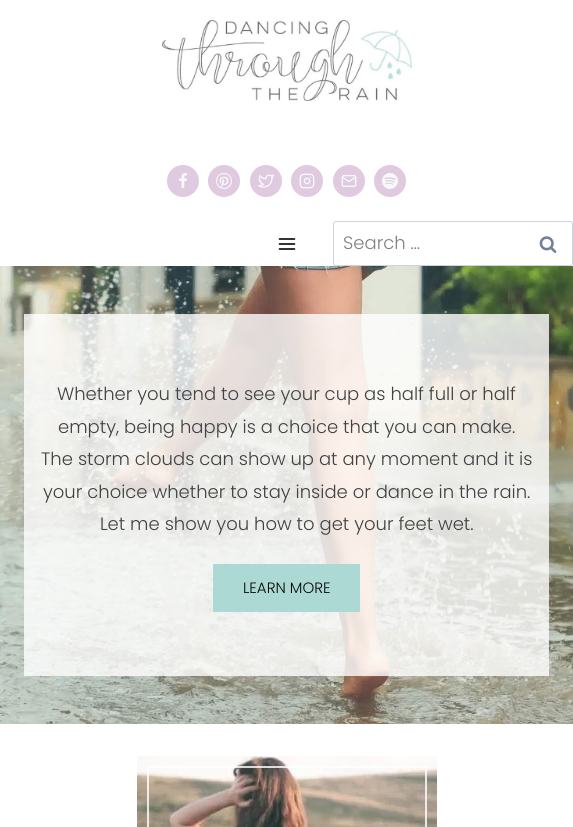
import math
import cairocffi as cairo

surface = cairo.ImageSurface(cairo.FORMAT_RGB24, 573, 827)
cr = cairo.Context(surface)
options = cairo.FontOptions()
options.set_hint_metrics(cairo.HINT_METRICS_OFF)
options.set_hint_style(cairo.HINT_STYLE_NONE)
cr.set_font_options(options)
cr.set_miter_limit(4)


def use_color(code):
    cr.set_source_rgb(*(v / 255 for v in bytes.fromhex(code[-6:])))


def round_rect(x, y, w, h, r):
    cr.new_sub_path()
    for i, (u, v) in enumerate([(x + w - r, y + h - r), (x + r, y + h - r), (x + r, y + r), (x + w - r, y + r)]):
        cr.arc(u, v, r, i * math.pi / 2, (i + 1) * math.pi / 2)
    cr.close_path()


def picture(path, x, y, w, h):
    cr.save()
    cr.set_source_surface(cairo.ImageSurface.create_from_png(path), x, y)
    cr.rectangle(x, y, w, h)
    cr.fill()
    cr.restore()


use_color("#ffffff")
cr.paint()
picture("img1.png", 162, 20, 250, 81)
use_color("#dfcadf")
cr.arc(183, 181, 16, 0, 2 * math.pi)
cr.fill()
picture("img2.png", 179, 173, 8, 15)
cr.arc(224, 181, 16, 0, 2 * math.pi)
cr.fill()
picture("img3.png", 216, 173, 16, 16)
cr.arc(266, 181, 16, 0, 2 * math.pi)
cr.fill()
picture("img4.png", 258, 174, 16, 14)
cr.arc(307, 181, 16, 0, 2 * math.pi)
cr.fill()
picture("img5.png", 299, 173, 16, 16)
cr.arc(349, 181, 16, 0, 2 * math.pi)
cr.fill()
picture("img6.png", 341, 175, 16, 12)
cr.arc(390, 181, 16, 0, 2 * math.pi)
cr.fill()
picture("img7.png", 382, 173, 16, 16)
picture("img8.png", 278, 238, 18, 12)
round_rect(333.5, 221.5, 239, 44, 2.5)
use_color("#cbd5e0")
cr.set_line_width(1)
cr.stroke()
cr.select_font_face("Poppins Light")
cr.set_font_size(18)
use_color("#808080")
cr.move_to(343, 249)
cr.show_text("Search …")
picture("img9.png", 539, 236, 18, 17)
picture("img10.png", 0, 266, 573, 458)
cr.set_source_rgba(1, 1, 1, 0.8)
cr.rectangle(24, 314, 525, 362)
cr.fill()
use_color("#414141")
cr.move_to(57, 400)
cr.show_text("Whether you tend to see your cup as half full or half")
cr.move_to(58, 433)
cr.show_text("empty, being happy is a choice that you can make.")
cr.move_to(41, 465)
cr.show_text("The storm clouds can show up at any moment and it is")
cr.move_to(43, 498)
cr.show_text("your choice whether to stay inside or dance in the rain.")
cr.move_to(100, 530)
cr.show_text("Let me show you how to get your feet wet.")
use_color("#add9d5")
cr.rectangle(213, 564, 147, 48)
cr.fill()
cr.set_font_size(15)
use_color("#070707")
cr.move_to(243, 593)
cr.show_text("LEARN MORE")
picture("img11.png", 137, 756, 300, 71)
cr.rectangle(148, 767, 278, 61)
cr.set_source_rgba(1, 1, 1, 0.8)
cr.set_line_width(2)
cr.stroke()
surface.write_to_png("result.png")
